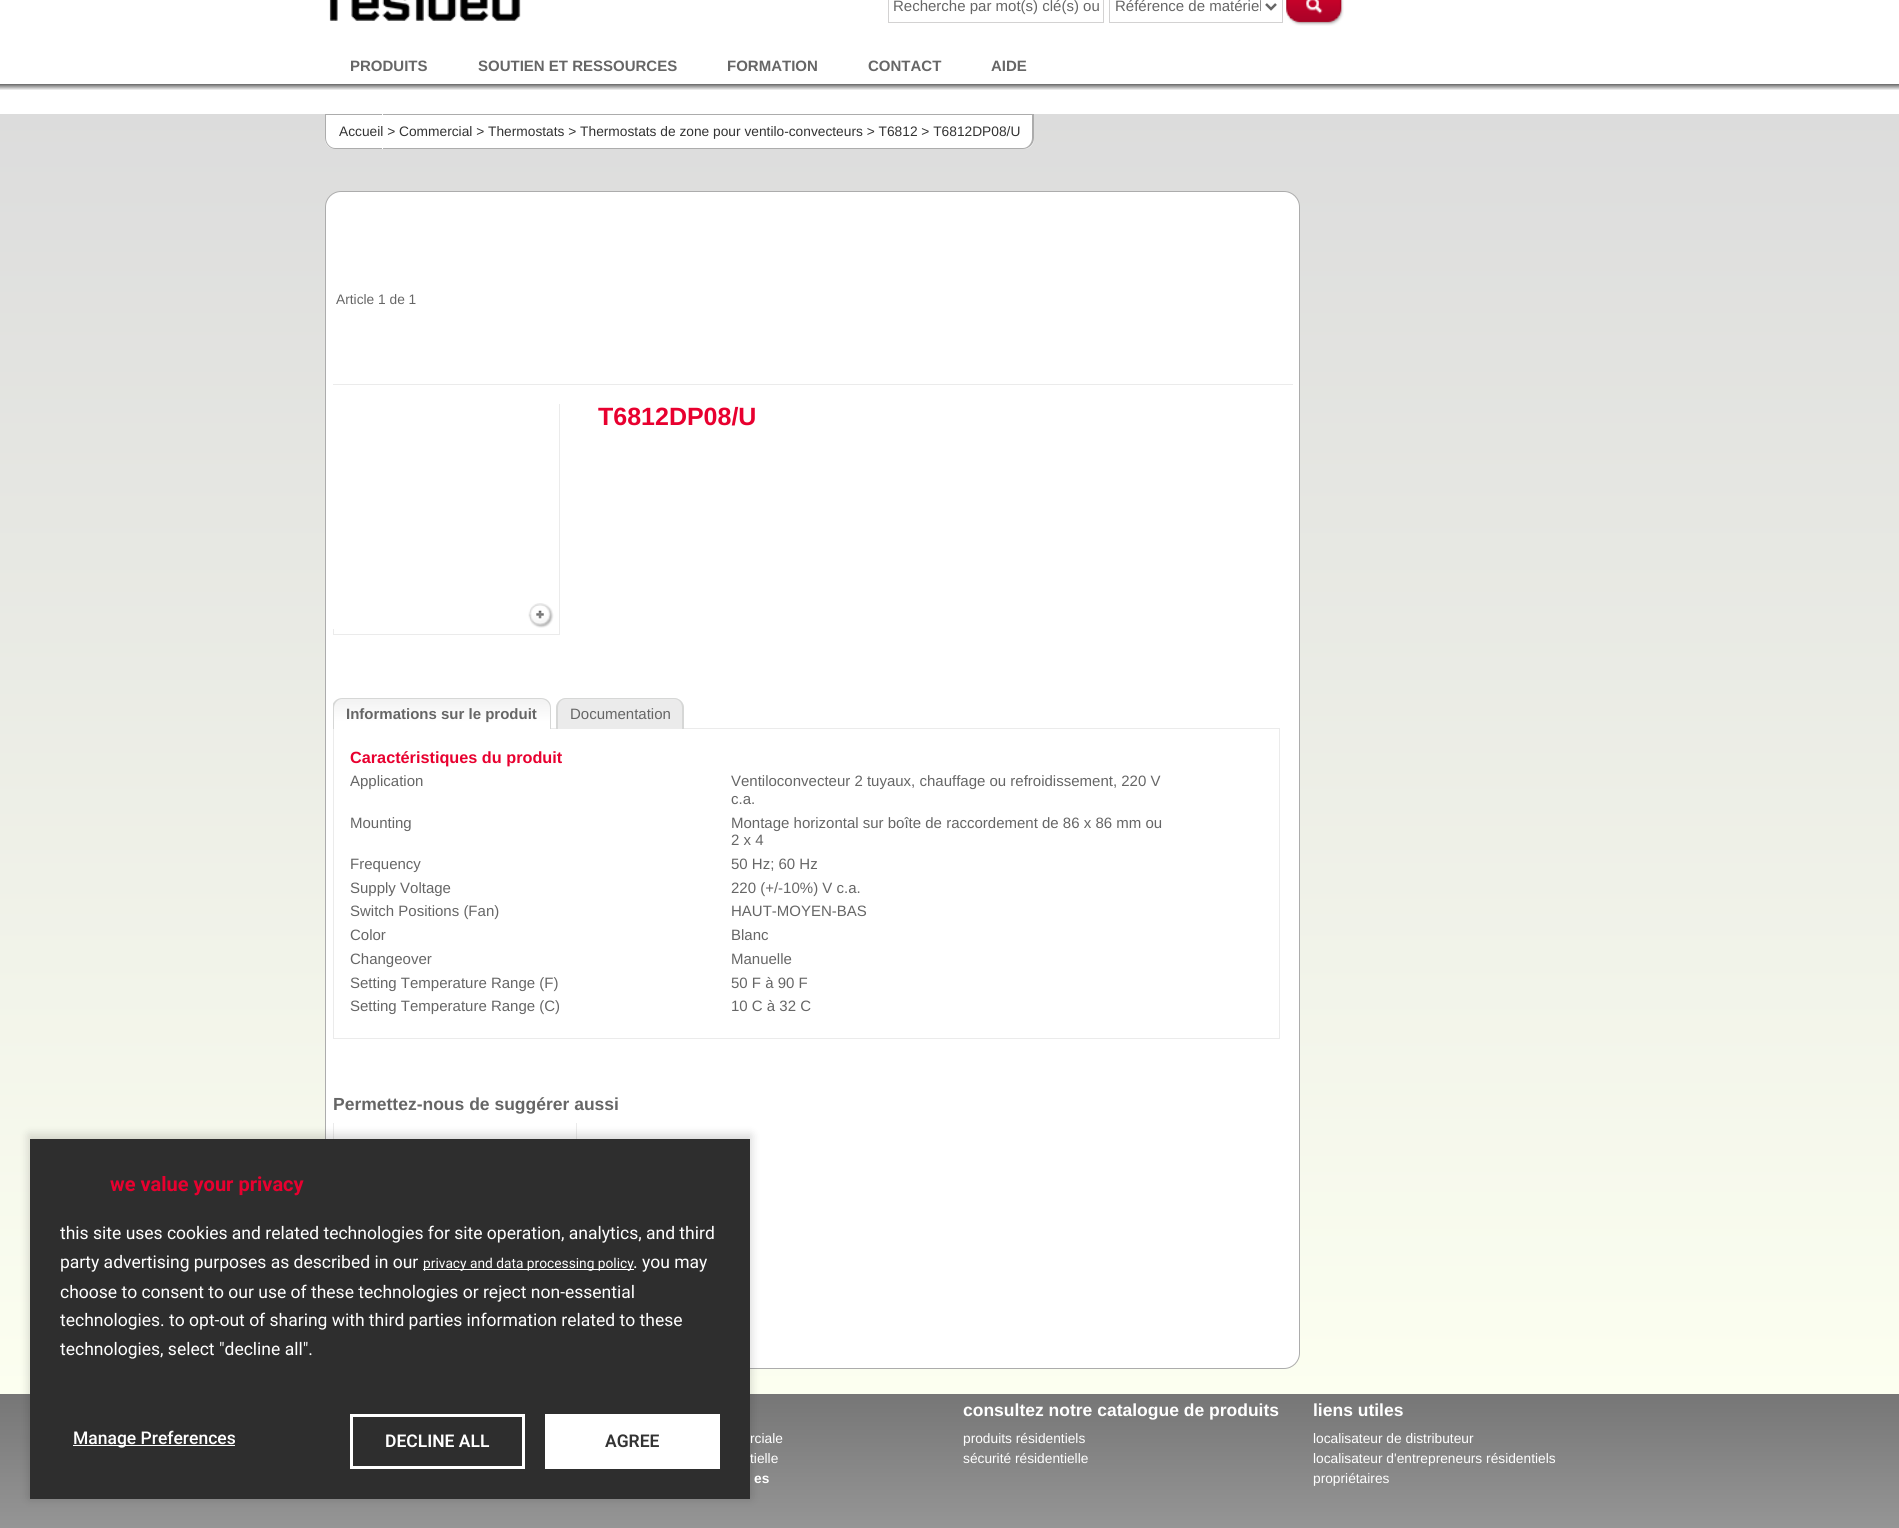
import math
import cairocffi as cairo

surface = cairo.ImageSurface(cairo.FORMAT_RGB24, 1899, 1528)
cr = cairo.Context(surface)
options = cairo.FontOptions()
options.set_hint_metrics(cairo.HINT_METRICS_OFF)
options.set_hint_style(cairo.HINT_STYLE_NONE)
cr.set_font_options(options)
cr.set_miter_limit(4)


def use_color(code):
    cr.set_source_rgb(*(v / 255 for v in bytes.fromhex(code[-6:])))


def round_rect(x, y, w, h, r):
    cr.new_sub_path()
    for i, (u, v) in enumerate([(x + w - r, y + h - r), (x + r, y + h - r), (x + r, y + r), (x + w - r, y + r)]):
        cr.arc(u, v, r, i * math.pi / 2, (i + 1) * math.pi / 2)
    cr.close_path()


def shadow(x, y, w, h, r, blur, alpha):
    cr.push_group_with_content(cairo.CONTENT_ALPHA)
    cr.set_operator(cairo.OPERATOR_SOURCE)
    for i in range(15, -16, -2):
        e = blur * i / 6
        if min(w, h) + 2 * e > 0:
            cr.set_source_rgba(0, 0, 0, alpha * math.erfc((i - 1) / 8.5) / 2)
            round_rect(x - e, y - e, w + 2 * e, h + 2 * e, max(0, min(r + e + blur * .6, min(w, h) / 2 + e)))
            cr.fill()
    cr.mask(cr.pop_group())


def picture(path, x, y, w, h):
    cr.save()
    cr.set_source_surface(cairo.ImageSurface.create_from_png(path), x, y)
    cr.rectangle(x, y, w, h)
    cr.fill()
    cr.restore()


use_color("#ffffff")
cr.paint()
picture("img1.png", 329, 0, 192, 21)
cr.rectangle(888.5, -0.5, 215, 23)
use_color("#d3d2d2")
cr.set_line_width(1)
cr.stroke()
cr.select_font_face("Liberation Sans")
cr.set_font_size(15)
use_color("#666666")
cr.move_to(893, 11)
cr.show_text("Recherche par mot(s) clé(s) ou")
cr.rectangle(1109.5, -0.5, 173, 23)
use_color("#d3d2d2")
cr.stroke()
cr.new_path()
cr.move_to(1266, 4)
cr.line_to(1271, 9)
cr.line_to(1276, 4)
use_color("#666666")
cr.set_line_width(2.5)
cr.stroke()
cr.save()
cr.rectangle(1115, 0, 146, 16)
cr.clip()
cr.move_to(1115, 11)
cr.show_text("Référence de matériel")
cr.restore()
picture("img2.png", 1286, 0, 58, 26)
cr.select_font_face("Liberation Sans", cairo.FONT_SLANT_NORMAL, cairo.FONT_WEIGHT_BOLD)
cr.move_to(350, 71)
cr.show_text("PRODUITS")
cr.move_to(478, 71)
cr.show_text("SOUTIEN ET RESSOURCES")
cr.move_to(727, 71)
cr.show_text("FORMATION")
cr.move_to(868, 71)
cr.show_text("CONTACT")
cr.move_to(991, 71)
cr.show_text("AIDE")
gradient = cairo.LinearGradient(0, 84, 0, 90)
gradient.add_color_stop_rgba(0, 0.4, 0.4, 0.4, 1)
gradient.add_color_stop_rgba(1, 0.961, 0.961, 0.961, 1)
cr.set_source(gradient)
cr.rectangle(0, 84, 1899, 6)
cr.fill()
gradient = cairo.LinearGradient(0, 114, 0, 1394)
gradient.add_color_stop_rgba(0, 0.863, 0.863, 0.863, 1)
gradient.add_color_stop_rgba(1, 0.988, 1, 0.941, 1)
cr.set_source(gradient)
cr.rectangle(0, 114, 1899, 1280)
cr.fill()
use_color("#ffffff")
cr.new_path()
cr.move_to(325, 114)
cr.line_to(383, 114)
cr.line_to(383, 149)
cr.line_to(335, 149)
cr.curve_to(329.5, 149, 325, 144.5, 325, 139)
cr.close_path()
cr.fill()
use_color("#acacac")
cr.set_fill_rule(cairo.FILL_RULE_EVEN_ODD)
cr.new_path()
cr.move_to(325, 114)
cr.line_to(382, 114)
cr.line_to(382, 149)
cr.line_to(335, 149)
cr.curve_to(330, 149, 325, 144, 325, 138)
cr.close_path()
cr.move_to(326, 115)
cr.line_to(382, 115)
cr.line_to(382, 148)
cr.line_to(335, 148)
cr.curve_to(330, 148, 326, 143, 326, 138)
cr.close_path()
cr.fill()
use_color("#ffffff")
cr.rectangle(383, 115, 535, 33)
cr.fill()
cr.new_path()
cr.move_to(918, 114)
cr.line_to(1034, 114)
cr.line_to(1034, 139)
cr.curve_to(1034, 144.5, 1029.5, 149, 1024, 149)
cr.line_to(918, 149)
cr.close_path()
cr.fill()
use_color("#acacac")
cr.new_path()
cr.move_to(918, 114)
cr.line_to(1034, 114)
cr.line_to(1034, 138)
cr.curve_to(1034, 144, 1029, 149, 1023, 149)
cr.line_to(918, 149)
cr.close_path()
cr.move_to(918, 115)
cr.line_to(1032, 115)
cr.line_to(1032, 138)
cr.curve_to(1032, 143, 1028, 148, 1023, 148)
cr.line_to(918, 148)
cr.close_path()
cr.fill()
cr.select_font_face("Liberation Sans")
cr.set_font_size(13.75)
use_color("#333333")
cr.move_to(339, 136)
cr.show_text("Accueil > Commercial > Thermostats > Thermostats de zone pour ventilo-convecteurs > T6812 > T6812DP08/U")
use_color("#acacac")
cr.rectangle(383, 114, 535, 1)
cr.fill()
cr.rectangle(383, 148, 535, 1)
cr.fill()
use_color("#ffffff")
round_rect(325.5, 191.5, 974, 1177, 15.5)
cr.fill_preserve()
use_color("#acacac")
cr.set_line_width(1)
cr.stroke()
use_color("#ebebeb")
cr.rectangle(333, 384, 960, 1)
cr.fill()
use_color("#666666")
cr.move_to(336, 304)
cr.show_text("Article 1 de 1")
cr.rectangle(333.5, 404.5, 226, 230)
use_color("#ebebeb")
cr.stroke()
use_color("#ffffff")
cr.rectangle(333, 404, 226, 225)
cr.fill()
picture("img3.png", 528, 603, 26, 25)
cr.save()
cr.set_fill_rule(cairo.FILL_RULE_WINDING)
cr.rectangle(598, 404, 947, 66)
cr.clip()
cr.select_font_face("Liberation Sans", cairo.FONT_SLANT_NORMAL, cairo.FONT_WEIGHT_BOLD)
cr.set_font_size(25)
use_color("#e8002f")
cr.move_to(598, 425)
cr.show_text("T6812DP08/U")
cr.restore()
cr.rectangle(333.5, 728.5, 946, 310)
use_color("#ebebeb")
cr.stroke()
cr.save()
cr.set_fill_rule(cairo.FILL_RULE_WINDING)
cr.new_path()
cr.move_to(343, 698)
cr.line_to(541, 698)
cr.curve_to(546.5, 698, 551, 702.5, 551, 708)
cr.line_to(551, 729)
cr.line_to(333, 729)
cr.line_to(333, 708)
cr.curve_to(333, 702.5, 337.5, 698, 343, 698)
cr.close_path()
cr.clip()
gradient = cairo.LinearGradient(334, 699, 334, 729)
gradient.add_color_stop_rgba(0.01, 0.949, 0.949, 0.949, 1)
gradient.add_color_stop_rgba(0.76, 1, 1, 1, 1)
cr.set_source(gradient)
cr.rectangle(333, 699, 218, 30)
cr.fill()
cr.restore()
cr.save()
cr.set_fill_rule(cairo.FILL_RULE_WINDING)
cr.rectangle(333, 696, 947, 343)
cr.clip()
use_color("#d6d7d6")
cr.set_fill_rule(cairo.FILL_RULE_EVEN_ODD)
cr.new_path()
cr.move_to(342, 698)
cr.line_to(541, 698)
cr.curve_to(547, 698, 551, 702, 551, 708)
cr.line_to(551, 729)
cr.line_to(332, 729)
cr.line_to(332, 708)
cr.curve_to(332, 702, 337, 698, 342, 698)
cr.close_path()
cr.move_to(342, 699)
cr.line_to(541, 699)
cr.curve_to(546, 699, 550, 703, 550, 708)
cr.line_to(550, 729)
cr.line_to(334, 729)
cr.line_to(334, 708)
cr.curve_to(334, 703, 338, 699, 342, 699)
cr.close_path()
cr.fill()
cr.restore()
cr.select_font_face("Liberation Sans", cairo.FONT_SLANT_NORMAL, cairo.FONT_WEIGHT_BOLD)
cr.set_font_size(15)
use_color("#666666")
cr.move_to(346, 719)
cr.show_text("Informations sur le produit")
use_color("#ebebeb")
cr.new_path()
cr.move_to(566, 698)
cr.line_to(674, 698)
cr.curve_to(679.5, 698, 684, 702.5, 684, 708)
cr.line_to(684, 729)
cr.line_to(556, 729)
cr.line_to(556, 708)
cr.curve_to(556, 702.5, 560.5, 698, 566, 698)
cr.close_path()
cr.fill()
use_color("#d6d7d6")
cr.new_path()
cr.move_to(566, 698)
cr.line_to(674, 698)
cr.curve_to(679, 698, 684, 702, 684, 708)
cr.line_to(684, 729)
cr.line_to(556, 729)
cr.line_to(556, 708)
cr.curve_to(556, 702, 561, 698, 566, 698)
cr.close_path()
cr.move_to(566, 699)
cr.line_to(674, 699)
cr.curve_to(679, 699, 682, 703, 682, 708)
cr.line_to(682, 729)
cr.line_to(558, 729)
cr.line_to(558, 708)
cr.curve_to(558, 703, 561, 699, 566, 699)
cr.close_path()
cr.fill()
cr.select_font_face("Liberation Sans")
use_color("#666666")
cr.move_to(570, 719)
cr.show_text("Documentation")
cr.select_font_face("Liberation Sans", cairo.FONT_SLANT_NORMAL, cairo.FONT_WEIGHT_BOLD)
cr.set_font_size(16.25)
use_color("#e8002f")
cr.move_to(350, 763)
cr.show_text("Caractéristiques du produit")
cr.select_font_face("Liberation Sans")
cr.set_font_size(15)
use_color("#666666")
cr.move_to(350, 786)
cr.show_text("Application")
cr.move_to(731, 786)
cr.show_text("Ventiloconvecteur 2 tuyaux, chauffage ou refroidissement, 220 V")
cr.move_to(731, 804)
cr.show_text("c.a.")
cr.move_to(350, 828)
cr.show_text("Mounting")
cr.move_to(731, 828)
cr.show_text("Montage horizontal sur boîte de raccordement de 86 x 86 mm ou")
cr.move_to(731, 845)
cr.show_text("2 x 4")
cr.move_to(350, 869)
cr.show_text("Frequency")
cr.move_to(731, 869)
cr.show_text("50 Hz; 60 Hz")
cr.move_to(350, 893)
cr.show_text("Supply Voltage")
cr.move_to(731, 893)
cr.show_text("220 (+/-10%) V c.a.")
cr.move_to(350, 916)
cr.show_text("Switch Positions (Fan)")
cr.move_to(731, 916)
cr.show_text("HAUT-MOYEN-BAS")
cr.move_to(350, 940)
cr.show_text("Color")
cr.move_to(731, 940)
cr.show_text("Blanc")
cr.move_to(350, 964)
cr.show_text("Changeover")
cr.move_to(731, 964)
cr.show_text("Manuelle")
cr.move_to(350, 988)
cr.show_text("Setting Temperature Range (F)")
cr.move_to(731, 988)
cr.show_text("50 F à 90 F")
cr.move_to(350, 1011)
cr.show_text("Setting Temperature Range (C)")
cr.move_to(731, 1011)
cr.show_text("10 C à 32 C")
cr.select_font_face("Liberation Sans", cairo.FONT_SLANT_NORMAL, cairo.FONT_WEIGHT_BOLD)
cr.set_font_size(17.5)
cr.move_to(333, 1110)
cr.show_text("Permettez-nous de suggérer aussi")
use_color("#ebebeb")
cr.rectangle(333, 1123, 1, 16)
cr.fill()
cr.rectangle(576, 1123, 1, 16)
cr.fill()
gradient = cairo.LinearGradient(0, 1394, 0, 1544)
gradient.add_color_stop_rgba(0, 0.463, 0.463, 0.463, 1)
gradient.add_color_stop_rgba(1, 0.6, 0.6, 0.6, 1)
cr.set_source(gradient)
cr.rectangle(0, 1394, 1899, 134)
cr.fill()
use_color("#000000")
shadow(29, 1135, 722, 363, 0, 5, 0.16)
use_color("#2e2e2e")
cr.rectangle(30, 1139, 720, 360)
cr.fill()
cr.select_font_face("Roboto", cairo.FONT_SLANT_NORMAL, cairo.FONT_WEIGHT_BOLD)
cr.set_font_size(20)
use_color("#e8002f")
cr.move_to(110, 1191)
cr.show_text("we value your privacy")
cr.select_font_face("Roboto")
cr.set_font_size(17.5)
use_color("#ffffff")
cr.move_to(60, 1239)
cr.show_text("this site uses cookies and related technologies for site operation, analytics, and third")
cr.move_to(60, 1268)
cr.show_text("party advertising purposes as described in our")
cr.rectangle(423, 1269, 211, 1)
cr.fill()
cr.set_font_size(13.75)
cr.move_to(423, 1268)
cr.show_text("privacy and data processing policy")
cr.set_font_size(17.5)
cr.move_to(633, 1268)
cr.show_text(". you may")
cr.move_to(60, 1298)
cr.show_text("choose to consent to our use of these technologies or reject non-essential")
cr.move_to(60, 1326)
cr.show_text("technologies. to opt-out of sharing with third parties information related to these")
cr.move_to(60, 1355)
cr.show_text("technologies, select \"decline all\".")
cr.rectangle(73, 1445, 162, 1)
cr.fill()
cr.select_font_face("Roboto Medium")
cr.move_to(73, 1444)
cr.show_text("Manage Preferences")
cr.rectangle(351.5, 1415.5, 172, 52)
cr.set_line_width(3)
cr.stroke()
cr.select_font_face("Roboto SemiBold")
cr.move_to(385, 1447)
cr.show_text("DECLINE ALL")
cr.rectangle(545, 1414, 175, 55)
cr.fill()
use_color("#333333")
cr.move_to(605, 1447)
cr.show_text("AGREE")
cr.select_font_face("Liberation Sans", cairo.FONT_SLANT_NORMAL, cairo.FONT_WEIGHT_BOLD)
cr.set_font_size(13.75)
use_color("#ffffff")
cr.move_to(754, 1483)
cr.show_text("es")
cr.select_font_face("Liberation Sans")
cr.move_to(750, 1443)
cr.show_text("rciale")
cr.move_to(750, 1463)
cr.show_text("tielle")
cr.select_font_face("Liberation Sans", cairo.FONT_SLANT_NORMAL, cairo.FONT_WEIGHT_BOLD)
cr.set_font_size(17.5)
cr.move_to(963, 1416)
cr.show_text("consultez notre catalogue de produits")
cr.select_font_face("Liberation Sans")
cr.set_font_size(13.75)
cr.move_to(963, 1443)
cr.show_text("produits résidentiels")
cr.move_to(963, 1463)
cr.show_text("sécurité résidentielle")
cr.select_font_face("Liberation Sans", cairo.FONT_SLANT_NORMAL, cairo.FONT_WEIGHT_BOLD)
cr.set_font_size(17.5)
cr.move_to(1313, 1416)
cr.show_text("liens utiles")
cr.select_font_face("Liberation Sans")
cr.set_font_size(13.75)
cr.move_to(1313, 1443)
cr.show_text("localisateur de distributeur")
cr.move_to(1313, 1463)
cr.show_text("localisateur d'entrepreneurs résidentiels")
cr.move_to(1313, 1483)
cr.show_text("propriétaires")
surface.write_to_png("result.png")
